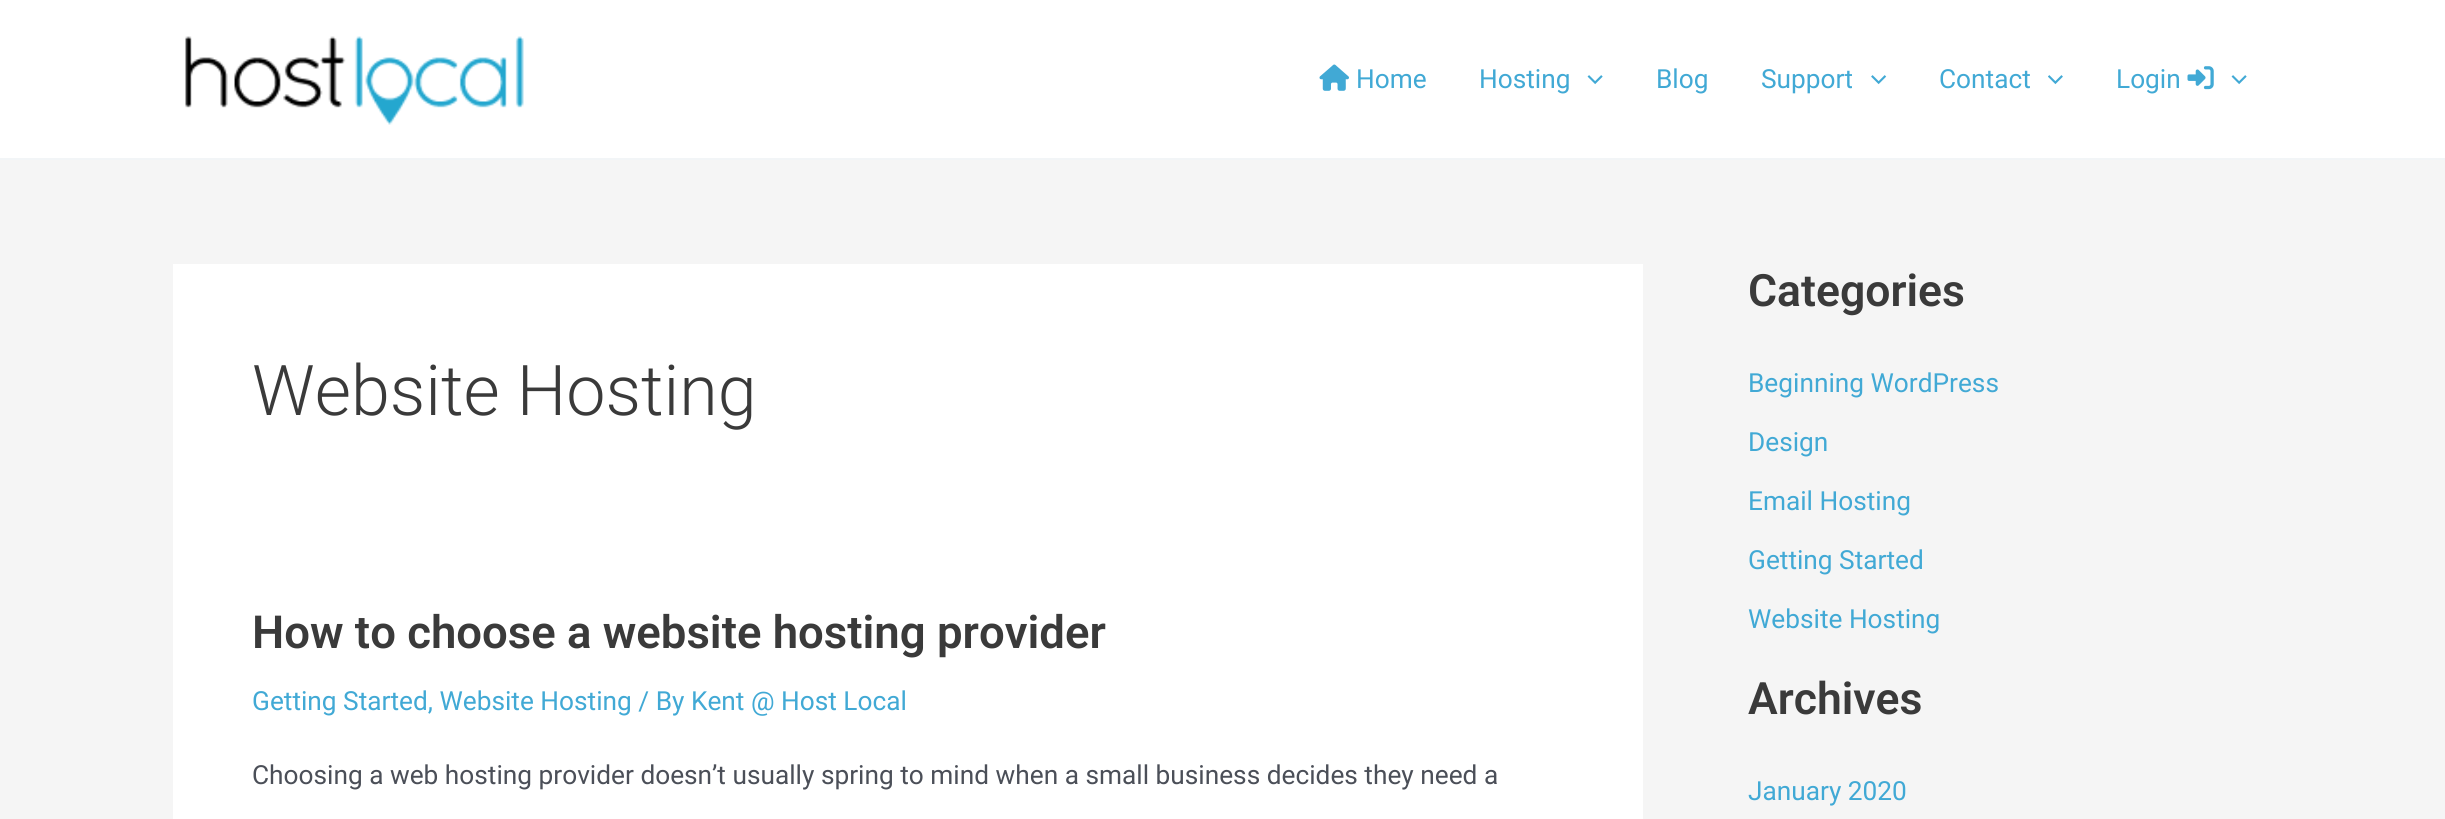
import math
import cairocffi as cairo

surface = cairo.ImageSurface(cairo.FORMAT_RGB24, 2445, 819)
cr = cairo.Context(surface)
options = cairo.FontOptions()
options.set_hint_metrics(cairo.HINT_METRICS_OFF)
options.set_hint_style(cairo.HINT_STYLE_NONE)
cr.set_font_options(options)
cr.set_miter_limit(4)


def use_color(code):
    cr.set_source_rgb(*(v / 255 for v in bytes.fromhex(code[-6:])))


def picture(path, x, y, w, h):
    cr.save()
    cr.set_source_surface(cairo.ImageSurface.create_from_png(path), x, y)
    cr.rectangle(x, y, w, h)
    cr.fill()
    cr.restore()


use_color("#f5f5f5")
cr.paint()
use_color("#ffffff")
cr.rectangle(0, 0, 2445, 158)
cr.fill()
use_color("#f2f5f7")
cr.rectangle(0, 158, 2445, 2)
cr.fill()
picture("img1.png", 185, 36, 339, 89)
picture("img2.png", 1319, 64, 30, 27)
cr.select_font_face("Roboto")
cr.set_font_size(26.25)
use_color("#41a9d5")
cr.move_to(1356, 88)
cr.show_text("Home")
cr.move_to(1479, 88)
cr.show_text("Hosting")
picture("img3.png", 1587, 75, 16, 10)
cr.move_to(1656, 88)
cr.show_text("Blog")
cr.move_to(1761, 88)
cr.show_text("Support")
picture("img4.png", 1871, 75, 16, 10)
cr.move_to(1939, 88)
cr.show_text("Contact")
picture("img5.png", 2048, 75, 15, 10)
cr.move_to(2116, 88)
cr.show_text("Login")
picture("img6.png", 2187, 66, 27, 24)
picture("img3.png", 2231, 75, 16, 10)
use_color("#ffffff")
cr.rectangle(173, 264, 1470, 555)
cr.fill()
cr.select_font_face("Roboto Light")
cr.set_font_size(70)
use_color("#3a3a3a")
cr.move_to(252, 415)
cr.show_text("Website Hosting")
cr.select_font_face("Roboto SemiBold")
cr.set_font_size(45.5)
cr.move_to(252, 648)
cr.show_text("How to choose a website hosting provider")
cr.select_font_face("Roboto")
cr.set_font_size(26.25)
use_color("#41a9d5")
cr.move_to(252, 710)
cr.show_text("Getting Started, Website Hosting / By Kent @ Host Local")
use_color("#4b4f58")
cr.move_to(252, 784)
cr.show_text("Choosing a web hosting provider doesn’t usually spring to mind when a small business decides they need a")
cr.select_font_face("Roboto SemiBold")
cr.set_font_size(44.5)
use_color("#3a3a3a")
cr.move_to(1748, 306)
cr.show_text("Categories")
cr.select_font_face("Roboto")
cr.set_font_size(26.25)
use_color("#41a9d5")
cr.move_to(1748, 392)
cr.show_text("Beginning WordPress")
cr.move_to(1748, 451)
cr.show_text("Design")
cr.move_to(1748, 510)
cr.show_text("Email Hosting")
cr.move_to(1748, 569)
cr.show_text("Getting Started")
cr.move_to(1748, 628)
cr.show_text("Website Hosting")
cr.select_font_face("Roboto SemiBold")
cr.set_font_size(44.5)
use_color("#3a3a3a")
cr.move_to(1748, 714)
cr.show_text("Archives")
cr.select_font_face("Roboto")
cr.set_font_size(26.25)
use_color("#41a9d5")
cr.move_to(1748, 800)
cr.show_text("January 2020")
surface.write_to_png("result.png")
